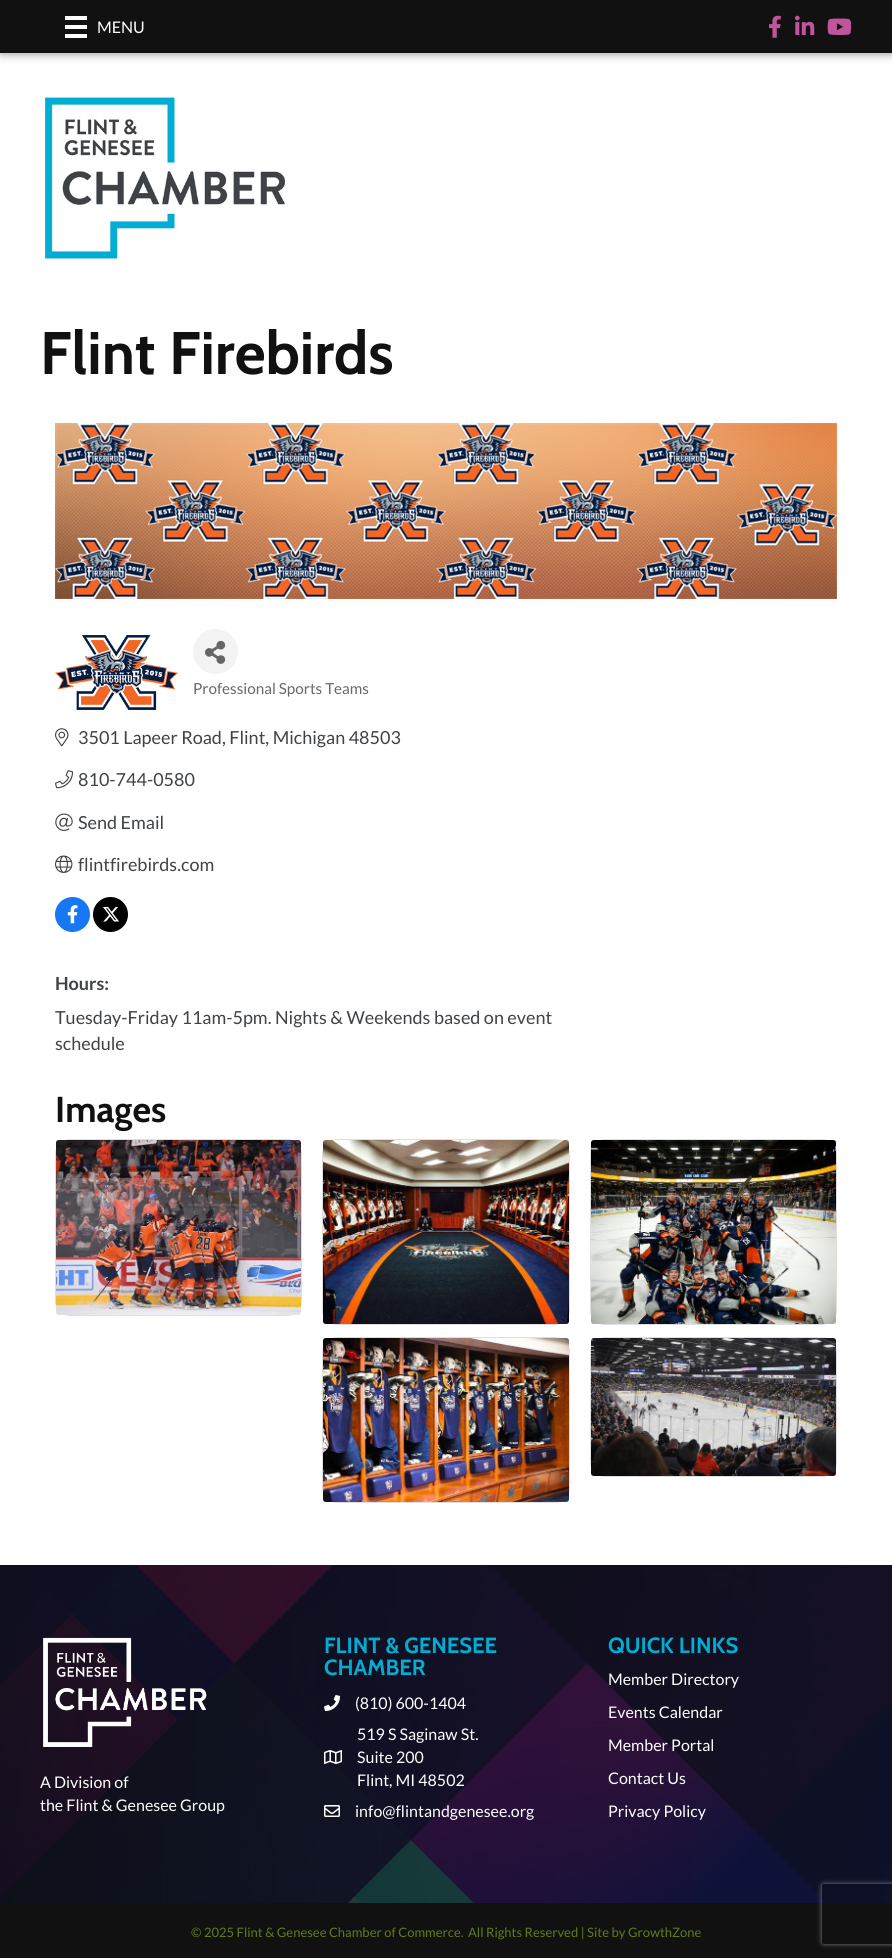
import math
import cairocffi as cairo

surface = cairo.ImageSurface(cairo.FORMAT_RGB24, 892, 1958)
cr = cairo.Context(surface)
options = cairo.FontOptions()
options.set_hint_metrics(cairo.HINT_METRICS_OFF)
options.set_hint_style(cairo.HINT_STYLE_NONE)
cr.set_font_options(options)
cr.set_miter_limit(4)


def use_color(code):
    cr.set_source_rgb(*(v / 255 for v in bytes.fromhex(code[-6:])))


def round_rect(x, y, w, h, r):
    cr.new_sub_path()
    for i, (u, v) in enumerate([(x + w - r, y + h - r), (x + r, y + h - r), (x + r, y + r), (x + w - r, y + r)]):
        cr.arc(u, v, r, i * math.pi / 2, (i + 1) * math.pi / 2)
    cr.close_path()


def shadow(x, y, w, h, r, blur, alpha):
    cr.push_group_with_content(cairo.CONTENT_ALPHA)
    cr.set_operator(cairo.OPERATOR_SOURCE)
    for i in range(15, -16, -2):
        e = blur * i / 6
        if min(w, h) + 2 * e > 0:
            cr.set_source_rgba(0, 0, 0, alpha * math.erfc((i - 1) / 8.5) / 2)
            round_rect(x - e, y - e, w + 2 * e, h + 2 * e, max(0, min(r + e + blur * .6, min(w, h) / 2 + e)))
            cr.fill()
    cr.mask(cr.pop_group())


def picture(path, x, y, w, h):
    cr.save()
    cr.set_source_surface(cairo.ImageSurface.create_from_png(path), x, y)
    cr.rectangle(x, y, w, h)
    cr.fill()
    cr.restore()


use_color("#ffffff")
cr.paint()
use_color("#999999")
shadow(1, 1, 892, 53, 0, 4.5, 1)
use_color("#111111")
cr.rectangle(0, 0, 892, 53)
cr.fill()
use_color("#ffffff")
cr.rectangle(65, 16, 22, 4)
cr.fill()
cr.rectangle(65, 25, 22, 4)
cr.fill()
cr.rectangle(65, 34, 22, 4)
cr.fill()
cr.select_font_face("Lato")
cr.set_font_size(16)
cr.move_to(97, 33)
cr.show_text("MENU")
picture("img1.png", 769, 15, 12, 23)
picture("img2.png", 795, 15, 20, 20)
picture("img3.png", 827, 18, 25, 17)
picture("img4.png", 45, 97, 240, 162)
cr.select_font_face("Cabin", cairo.FONT_SLANT_NORMAL, cairo.FONT_WEIGHT_BOLD)
cr.set_font_size(60)
use_color("#111111")
cr.move_to(40, 374)
cr.show_text("Flint Firebirds")
picture("img5.png", 55, 423, 782, 176)
picture("img6.png", 55, 635, 123, 75)
use_color("#f3f3f3")
cr.arc(215.5, 651.5, 22.5, 0, 2 * math.pi)
cr.fill()
picture("img7.png", 205, 640, 21, 24)
cr.select_font_face("Lato")
cr.set_font_size(15.25)
use_color("#65686b")
cr.move_to(193, 694)
cr.show_text("Professional Sports Teams")
picture("img8.png", 55, 728, 14, 19)
cr.set_font_size(18)
use_color("#3f4246")
cr.move_to(78, 744)
cr.show_text("3501 Lapeer Road, Flint, Michigan 48503")
picture("img9.png", 55, 770, 18, 19)
cr.move_to(78, 786)
cr.show_text("810-744-0580")
picture("img10.png", 55, 813, 18, 18)
cr.move_to(78, 829)
cr.show_text("Send Email")
picture("img11.png", 55, 855, 18, 18)
cr.move_to(78, 871)
cr.show_text("flintfirebirds.com")
use_color("#1877f2")
cr.new_path()
cr.arc(72.5, 914.5, 17.5, 0, 2 * math.pi)
cr.fill()
picture("img12.png", 67, 905, 11, 19)
use_color("#000000")
cr.arc(110.5, 914.5, 17.5, 0, 2 * math.pi)
cr.fill()
picture("img13.png", 103, 906, 16, 16)
cr.select_font_face("Lato", cairo.FONT_SLANT_NORMAL, cairo.FONT_WEIGHT_BOLD)
use_color("#3f4246")
cr.move_to(55, 990)
cr.show_text("Hours:")
cr.select_font_face("Lato")
cr.move_to(55, 1024)
cr.show_text("Tuesday-Friday 11am-5pm. Nights & Weekends based on event")
cr.move_to(55, 1050)
cr.show_text("schedule")
cr.select_font_face("Cabin", cairo.FONT_SLANT_NORMAL, cairo.FONT_WEIGHT_BOLD)
cr.set_font_size(36)
use_color("#111111")
cr.move_to(55, 1122)
cr.show_text("Images")
round_rect(55.5, 1139.5, 246, 176, 14.5)
use_color("#dfdfdf")
cr.set_line_width(1)
cr.stroke()
picture("img14.png", 56, 1140, 245, 175)
round_rect(322.5, 1139.5, 247, 185, 14.5)
cr.stroke()
picture("img15.png", 323, 1140, 246, 184)
round_rect(590.5, 1139.5, 246, 185, 14.5)
cr.stroke()
picture("img16.png", 591, 1140, 245, 184)
round_rect(322.5, 1337.5, 247, 165, 14.5)
cr.stroke()
picture("img17.png", 323, 1338, 246, 164)
round_rect(590.5, 1337.5, 246, 139, 14.5)
cr.stroke()
picture("img18.png", 591, 1338, 245, 138)
picture("img19.png", 0, 1565, 892, 338)
picture("img20.png", 43, 1637, 164, 110)
cr.select_font_face("Lato")
cr.set_font_size(16)
use_color("#ffffff")
cr.move_to(40, 1788)
cr.show_text("A Division of")
cr.move_to(40, 1811)
cr.show_text("the Flint & Genesee Group")
cr.select_font_face("Cabin", cairo.FONT_SLANT_NORMAL, cairo.FONT_WEIGHT_BOLD)
cr.set_font_size(22)
use_color("#00add3")
cr.move_to(324, 1653)
cr.show_text("FLINT & GENESEE")
cr.move_to(324, 1675)
cr.show_text("CHAMBER")
picture("img21.png", 324, 1695, 16, 16)
cr.select_font_face("Lato")
cr.set_font_size(16)
use_color("#ffffff")
cr.move_to(355, 1709)
cr.show_text("(810) 600-1404")
picture("img22.png", 324, 1750, 18, 14)
cr.move_to(357, 1740)
cr.show_text("519 S Saginaw St.")
cr.move_to(357, 1763)
cr.show_text("Suite 200")
cr.move_to(357, 1786)
cr.show_text("Flint, MI 48502")
picture("img23.png", 324, 1805, 16, 12)
cr.move_to(355, 1817)
cr.show_text("info@flintandgenesee.org")
cr.select_font_face("Cabin", cairo.FONT_SLANT_NORMAL, cairo.FONT_WEIGHT_BOLD)
cr.set_font_size(22)
use_color("#00add3")
cr.move_to(608, 1653)
cr.show_text("QUICK LINKS")
cr.select_font_face("Lato")
cr.set_font_size(16)
use_color("#ffffff")
cr.move_to(608, 1685)
cr.show_text("Member Directory")
cr.move_to(608, 1718)
cr.show_text("Events Calendar")
cr.move_to(608, 1751)
cr.show_text("Member Portal")
cr.move_to(608, 1784)
cr.show_text("Contact Us")
cr.move_to(608, 1817)
cr.show_text("Privacy Policy")
use_color("#111111")
cr.rectangle(0, 1903, 892, 55)
cr.fill()
cr.set_font_size(13)
use_color("#617b1b")
cr.move_to(191, 1937)
cr.show_text("© 2025 Flint & Genesee Chamber of Commerce.")
cr.move_to(468, 1937)
cr.show_text("All Rights Reserved | Site by GrowthZone")
cr.save()
cr.set_fill_rule(cairo.FILL_RULE_EVEN_ODD)
cr.new_path()
cr.move_to(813, 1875)
cr.line_to(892, 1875)
cr.line_to(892, 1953)
cr.line_to(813, 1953)
cr.close_path()
cr.move_to(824, 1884)
cr.line_to(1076, 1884)
cr.curve_to(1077, 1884, 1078, 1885, 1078, 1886)
cr.line_to(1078, 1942)
cr.curve_to(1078, 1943, 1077, 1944, 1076, 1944)
cr.line_to(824, 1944)
cr.curve_to(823, 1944, 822, 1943, 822, 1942)
cr.line_to(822, 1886)
cr.curve_to(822, 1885, 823, 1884, 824, 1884)
cr.close_path()
cr.clip()
use_color("#808080")
shadow(822, 1884, 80, 60, 2, 2.5, 1)
cr.restore()
surface.write_to_png("result.png")
